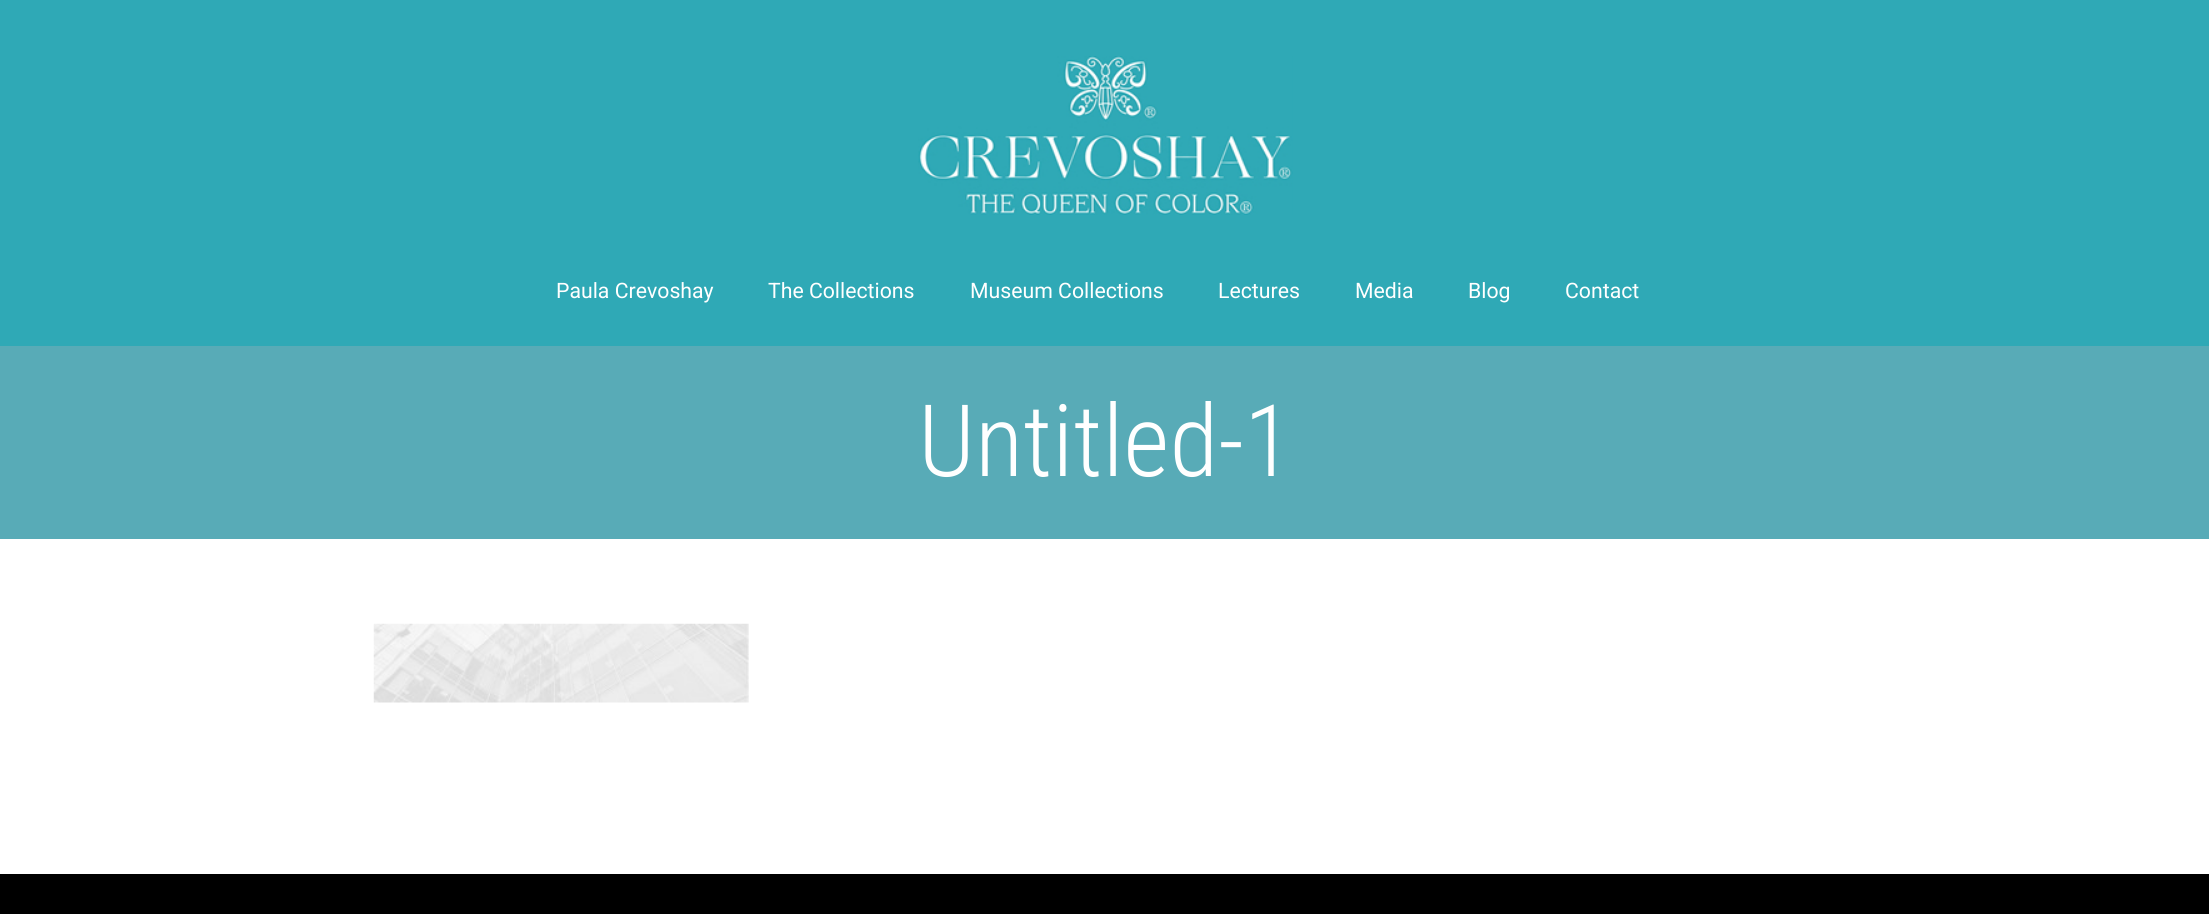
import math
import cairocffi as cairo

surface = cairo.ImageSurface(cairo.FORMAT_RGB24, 2209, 914)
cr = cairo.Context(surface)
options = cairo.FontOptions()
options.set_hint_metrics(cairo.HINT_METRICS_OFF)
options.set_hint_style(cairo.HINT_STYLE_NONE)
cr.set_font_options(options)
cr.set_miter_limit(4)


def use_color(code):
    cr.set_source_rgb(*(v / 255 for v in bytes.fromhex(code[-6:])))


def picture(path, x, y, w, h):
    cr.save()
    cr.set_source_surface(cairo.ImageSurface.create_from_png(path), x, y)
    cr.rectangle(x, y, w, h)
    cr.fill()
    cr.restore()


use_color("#000000")
cr.paint()
use_color("#2fa9b6")
cr.rectangle(0, 0, 2209, 346)
cr.fill()
picture("img1.png", 918, 56, 375, 159)
cr.select_font_face("Roboto")
cr.set_font_size(21.25)
use_color("#ffffff")
cr.move_to(556, 298)
cr.show_text("Paula Crevoshay")
cr.move_to(768, 298)
cr.show_text("The Collections")
cr.move_to(970, 298)
cr.show_text("Museum Collections")
cr.move_to(1218, 298)
cr.show_text("Lectures")
cr.move_to(1355, 298)
cr.show_text("Media")
cr.move_to(1468, 298)
cr.show_text("Blog")
cr.move_to(1565, 298)
cr.show_text("Contact")
use_color("#58abb7")
cr.rectangle(0, 346, 2209, 193)
cr.fill()
cr.select_font_face("Roboto Condensed Light")
cr.set_font_size(100)
use_color("#ffffff")
cr.move_to(918, 476)
cr.show_text("Untitled-1")
cr.rectangle(0, 539, 2209, 335)
cr.fill()
picture("img2.png", 373, 623, 376, 80)
surface.write_to_png("result.png")
